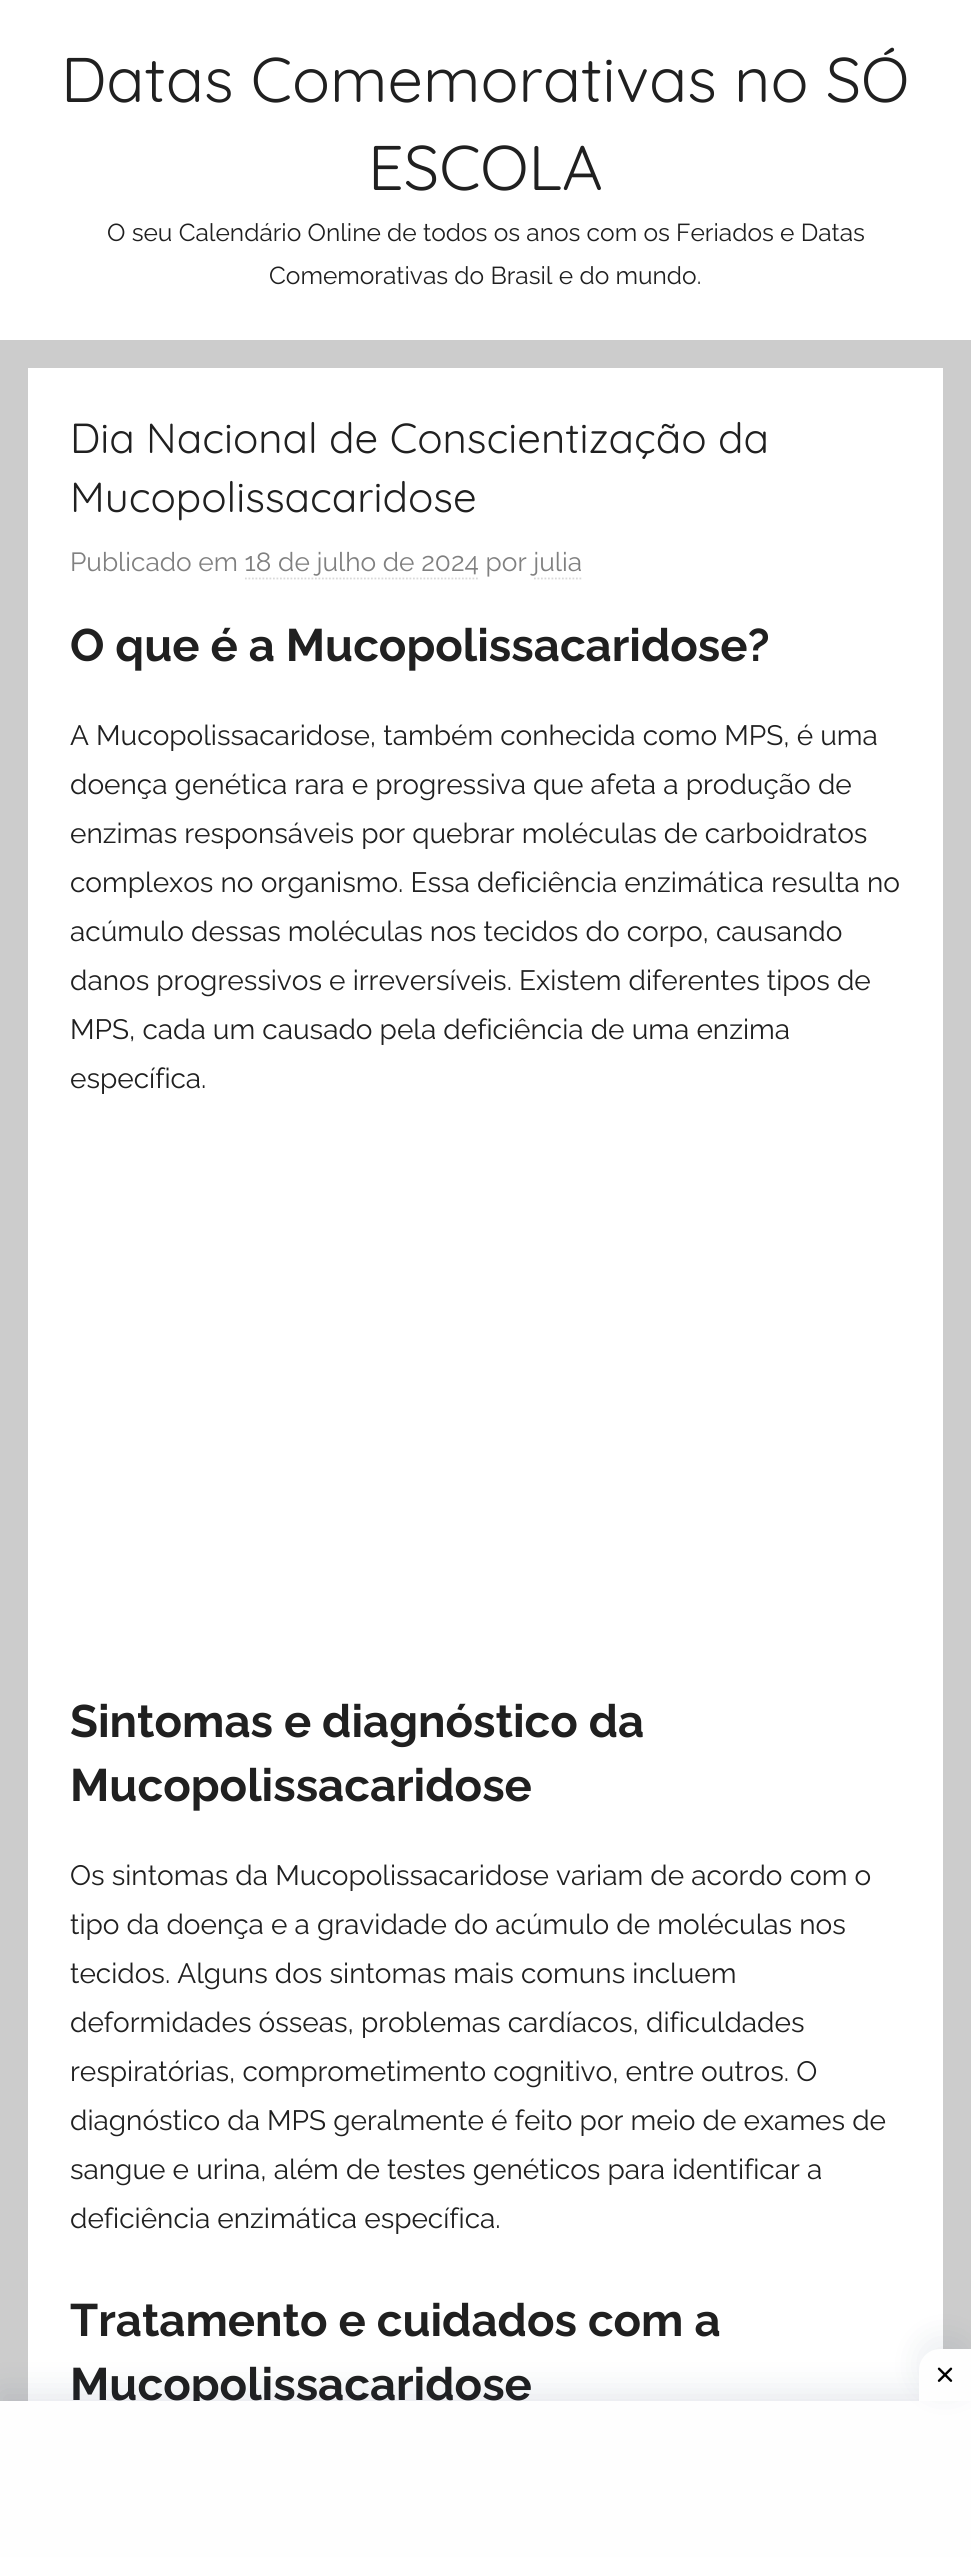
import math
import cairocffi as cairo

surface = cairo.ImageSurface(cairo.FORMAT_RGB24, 971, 2557)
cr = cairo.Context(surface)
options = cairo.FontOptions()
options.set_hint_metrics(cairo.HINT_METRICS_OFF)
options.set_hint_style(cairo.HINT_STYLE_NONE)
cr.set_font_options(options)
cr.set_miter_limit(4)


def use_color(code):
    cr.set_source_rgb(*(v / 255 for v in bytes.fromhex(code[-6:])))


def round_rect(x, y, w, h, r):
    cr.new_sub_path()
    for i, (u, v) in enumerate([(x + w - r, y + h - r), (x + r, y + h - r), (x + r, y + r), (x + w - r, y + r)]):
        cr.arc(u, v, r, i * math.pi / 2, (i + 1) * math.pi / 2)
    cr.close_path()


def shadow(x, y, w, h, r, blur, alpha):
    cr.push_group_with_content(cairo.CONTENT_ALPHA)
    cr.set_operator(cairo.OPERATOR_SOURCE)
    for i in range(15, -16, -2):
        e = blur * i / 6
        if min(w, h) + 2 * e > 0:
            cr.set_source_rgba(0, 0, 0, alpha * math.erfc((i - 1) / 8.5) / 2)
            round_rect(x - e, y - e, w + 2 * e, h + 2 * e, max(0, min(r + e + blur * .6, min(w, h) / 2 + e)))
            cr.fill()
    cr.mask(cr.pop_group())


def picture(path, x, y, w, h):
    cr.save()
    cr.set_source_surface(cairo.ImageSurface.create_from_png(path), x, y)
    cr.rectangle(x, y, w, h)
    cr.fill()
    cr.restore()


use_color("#cccccc")
cr.paint()
use_color("#ffffff")
cr.rectangle(0, 0, 971, 340)
cr.fill()
cr.select_font_face("Quicksand")
cr.set_font_size(63)
use_color("#202020")
cr.move_to(61, 102)
cr.show_text("Datas Comemorativas no SÓ")
cr.move_to(368, 190)
cr.show_text("ESCOLA")
cr.select_font_face("Raleway")
cr.set_font_size(24.5)
cr.move_to(107, 241)
cr.show_text("O seu Calendário Online de todos os anos com os Feriados e Datas")
cr.move_to(269, 284)
cr.show_text("Comemorativas do Brasil e do mundo.")
use_color("#ffffff")
cr.rectangle(28, 368, 915, 2033)
cr.fill()
cr.select_font_face("Quicksand")
cr.set_font_size(42)
use_color("#202020")
cr.move_to(70, 453)
cr.show_text("Dia Nacional de Conscientização da")
cr.move_to(70, 512)
cr.show_text("Mucopolissacaridose")
cr.select_font_face("Raleway")
cr.set_font_size(26.25)
use_color("#808080")
cr.move_to(70, 571)
cr.show_text("Publicado em 18 de julho de 2024 por julia")
cr.new_path()
cr.move_to(245, 578.5)
cr.line_to(479.5, 578.5)
use_color("#d9d9d9")
cr.set_line_width(1.8)
cr.set_dash([1.75, 1.75])
cr.stroke()
cr.new_path()
cr.move_to(534, 578.5)
cr.line_to(583, 578.5)
cr.stroke()
cr.select_font_face("Raleway", cairo.FONT_SLANT_NORMAL, cairo.FONT_WEIGHT_BOLD)
cr.set_font_size(45.5)
use_color("#202020")
cr.move_to(70, 661)
cr.show_text("O que é a Mucopolissacaridose?")
cr.select_font_face("Raleway")
cr.set_font_size(28)
cr.move_to(70, 745)
cr.show_text("A Mucopolissacaridose, também conhecida como MPS, é uma")
cr.move_to(70, 794)
cr.show_text("doença genética rara e progressiva que afeta a produção de")
cr.move_to(70, 843)
cr.show_text("enzimas responsáveis por quebrar moléculas de carboidratos")
cr.move_to(70, 892)
cr.show_text("complexos no organismo. Essa deficiência enzimática resulta no")
cr.move_to(70, 941)
cr.show_text("acúmulo dessas moléculas nos tecidos do corpo, causando")
cr.move_to(70, 990)
cr.show_text("danos progressivos e irreversíveis. Existem diferentes tipos de")
cr.move_to(70, 1039)
cr.show_text("MPS, cada um causado pela deficiência de uma enzima")
cr.move_to(70, 1088)
cr.show_text("específica.")
cr.select_font_face("Raleway", cairo.FONT_SLANT_NORMAL, cairo.FONT_WEIGHT_BOLD)
cr.set_font_size(45.5)
cr.move_to(70, 1737)
cr.show_text("Sintomas e diagnóstico da")
cr.move_to(70, 1801)
cr.show_text("Mucopolissacaridose")
cr.select_font_face("Raleway")
cr.set_font_size(28)
cr.move_to(70, 1885)
cr.show_text("Os sintomas da Mucopolissacaridose variam de acordo com o")
cr.move_to(70, 1934)
cr.show_text("tipo da doença e a gravidade do acúmulo de moléculas nos")
cr.move_to(70, 1983)
cr.show_text("tecidos. Alguns dos sintomas mais comuns incluem")
cr.move_to(70, 2032)
cr.show_text("deformidades ósseas, problemas cardíacos, dificuldades")
cr.move_to(70, 2081)
cr.show_text("respiratórias, comprometimento cognitivo, entre outros. O")
cr.move_to(70, 2130)
cr.show_text("diagnóstico da MPS geralmente é feito por meio de exames de")
cr.move_to(70, 2179)
cr.show_text("sangue e urina, além de testes genéticos para identificar a")
cr.move_to(70, 2228)
cr.show_text("deficiência enzimática específica.")
cr.select_font_face("Raleway", cairo.FONT_SLANT_NORMAL, cairo.FONT_WEIGHT_BOLD)
cr.set_font_size(45.5)
cr.move_to(70, 2336)
cr.show_text("Tratamento e cuidados com a")
cr.move_to(70, 2400)
cr.show_text("Mucopolissacaridose")
use_color("#09204c")
shadow(0, 2391, 971, 157, 0, 16, 0.1)
use_color("#fefefe")
cr.rectangle(0, 2401, 971, 156)
cr.fill()
use_color("#09204c")
shadow(919, 2338, 52, 53, 21, 16, 0.08)
use_color("#fefefe")
cr.new_path()
cr.move_to(940, 2349)
cr.line_to(971, 2349)
cr.line_to(971, 2401)
cr.line_to(919, 2401)
cr.line_to(919, 2370)
cr.curve_to(919, 2358.5, 928.5, 2349, 940, 2349)
cr.close_path()
cr.fill()
picture("img1.png", 937, 2367, 16, 15)
surface.write_to_png("result.png")
